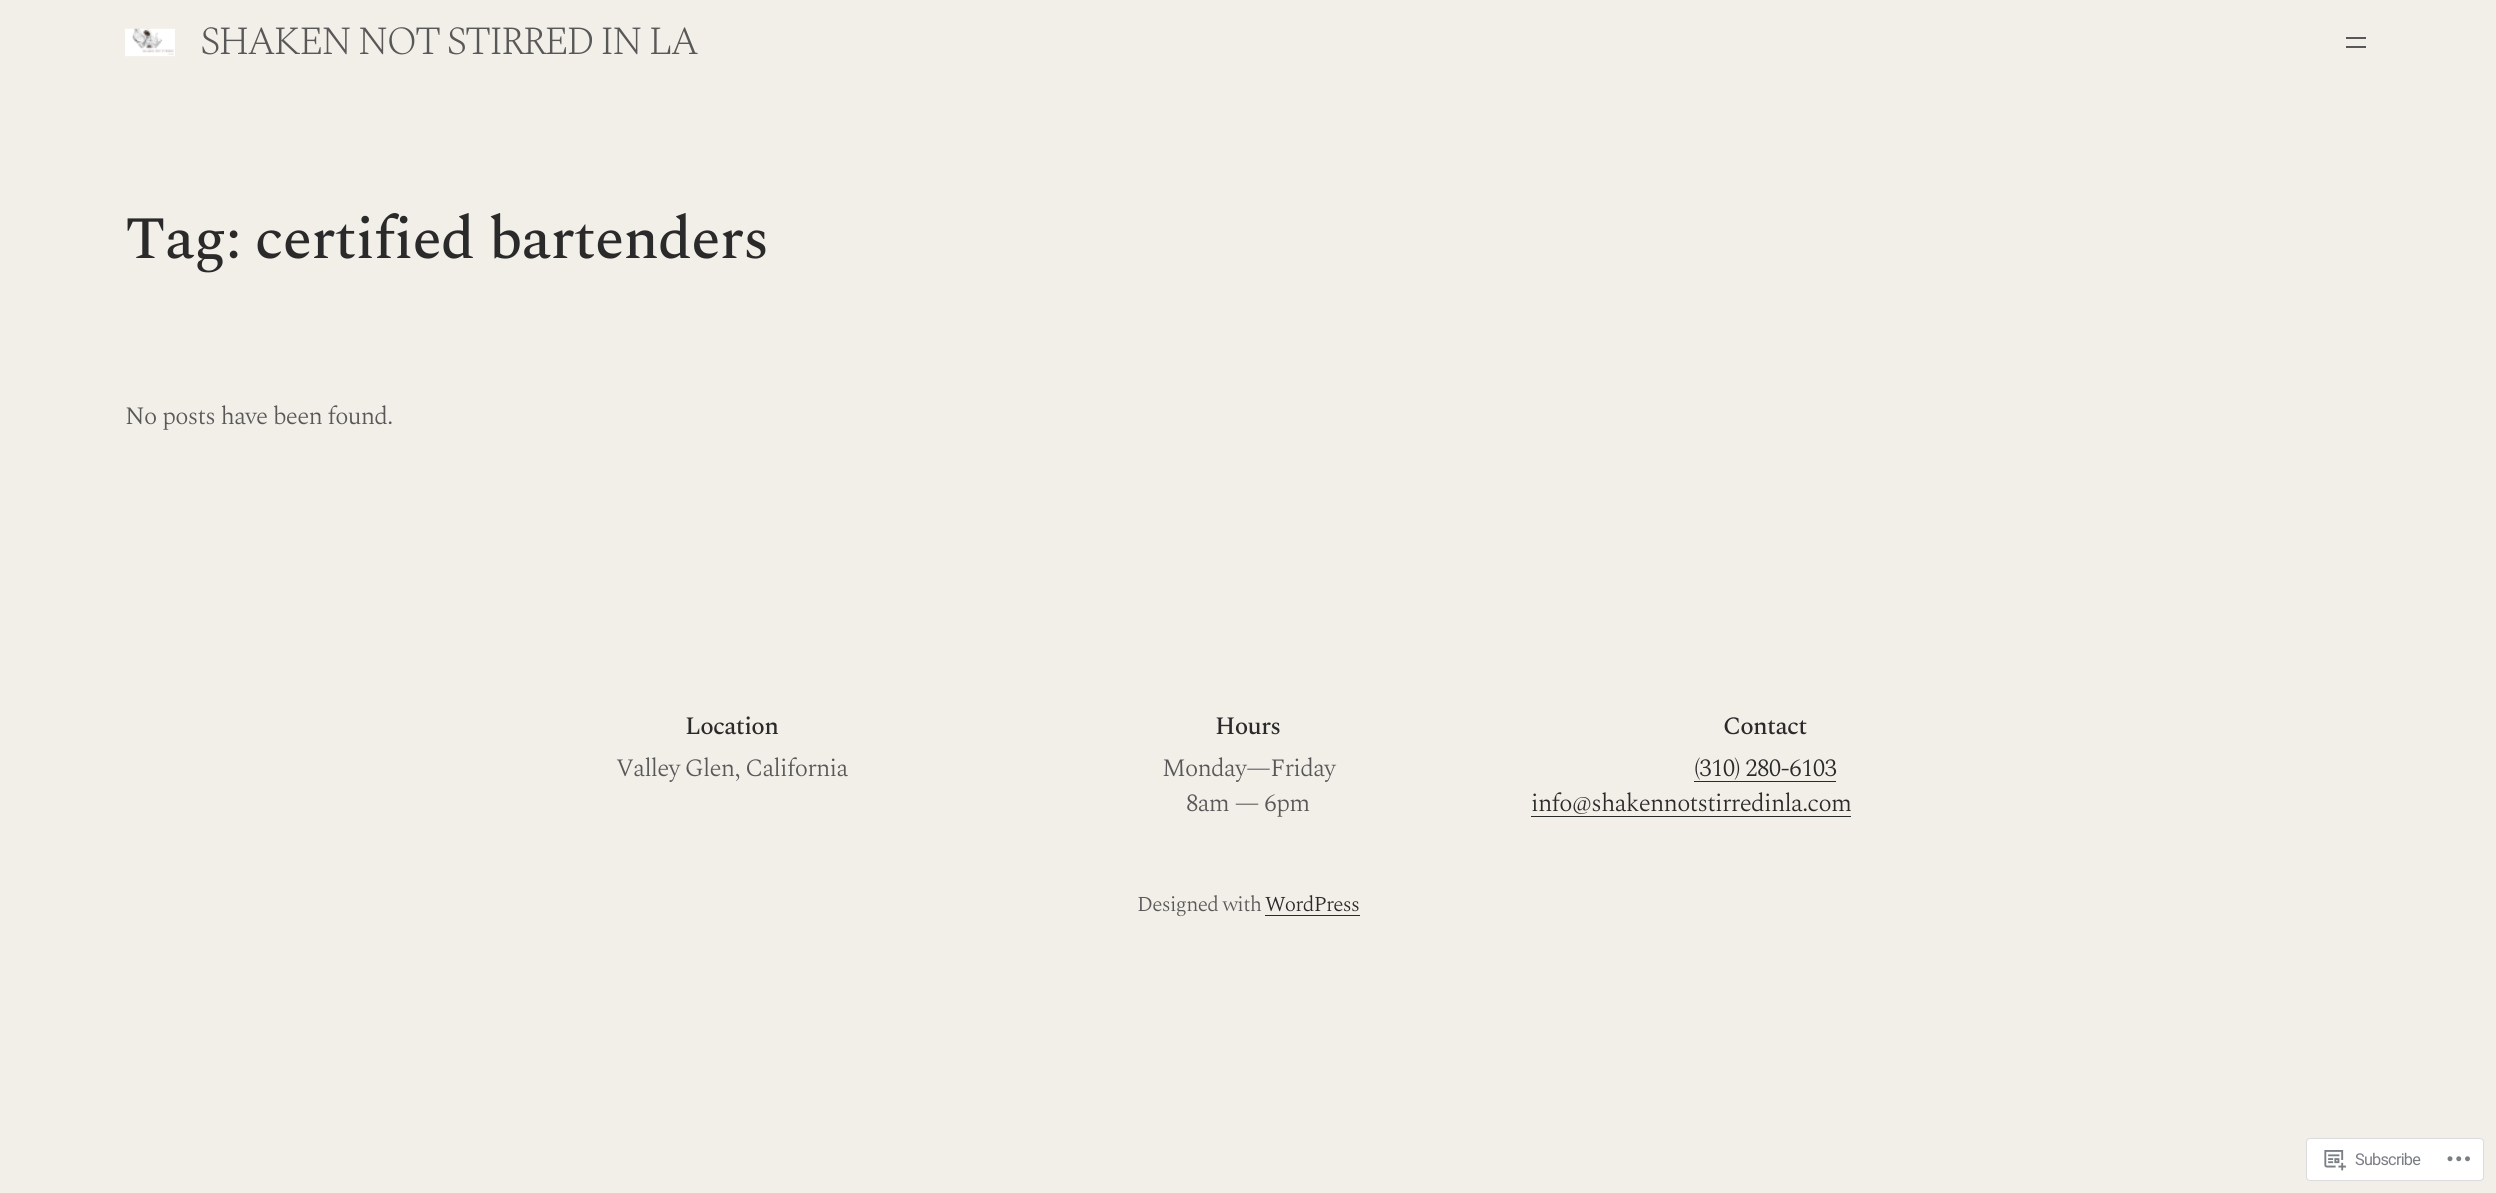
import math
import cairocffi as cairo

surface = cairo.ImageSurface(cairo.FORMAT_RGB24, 2496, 1193)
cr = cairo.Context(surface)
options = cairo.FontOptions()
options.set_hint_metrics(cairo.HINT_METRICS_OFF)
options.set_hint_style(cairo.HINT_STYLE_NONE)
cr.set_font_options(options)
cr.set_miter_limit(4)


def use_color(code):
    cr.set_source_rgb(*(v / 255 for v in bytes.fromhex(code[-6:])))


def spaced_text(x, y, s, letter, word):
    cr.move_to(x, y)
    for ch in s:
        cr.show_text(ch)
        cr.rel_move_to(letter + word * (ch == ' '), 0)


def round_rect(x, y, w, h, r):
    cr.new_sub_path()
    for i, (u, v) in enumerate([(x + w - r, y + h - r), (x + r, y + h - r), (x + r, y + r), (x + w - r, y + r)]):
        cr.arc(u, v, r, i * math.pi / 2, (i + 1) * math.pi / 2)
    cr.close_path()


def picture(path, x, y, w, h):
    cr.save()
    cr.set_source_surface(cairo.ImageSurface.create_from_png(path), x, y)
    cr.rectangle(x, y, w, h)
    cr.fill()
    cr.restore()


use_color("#f2eee8")
cr.paint()
picture("img1.png", 125, 28, 50, 29)
cr.select_font_face("Spectral ExtraLight")
cr.set_font_size(40)
use_color("#585858")
spaced_text(200, 54, "SHAKEN NOT STIRRED IN LA", -2.4, 0)
cr.rectangle(2346, 37, 20, 2)
cr.fill()
cr.rectangle(2346, 46, 20, 2)
cr.fill()
cr.select_font_face("Spectral Medium")
cr.set_font_size(60)
use_color("#2a2a2a")
spaced_text(125, 258, "Tag: certified bartenders", -0.75, 0)
cr.select_font_face("Spectral Light")
cr.set_font_size(25)
use_color("#585858")
spaced_text(125, 424, "No posts have been found.", -0.75, 0)
cr.select_font_face("Spectral Medium")
use_color("#2a2a2a")
spaced_text(685, 734, "Location", -0.75, 0)
cr.select_font_face("Spectral Light")
use_color("#585858")
spaced_text(616, 776, "Valley Glen, California", -0.75, 0)
cr.select_font_face("Spectral Medium")
use_color("#2a2a2a")
spaced_text(1215, 734, "Hours", -0.75, 0)
cr.select_font_face("Spectral Light")
use_color("#585858")
spaced_text(1162, 776, "Monday—Friday", -0.75, 0)
spaced_text(1186, 811, "8am — 6pm", -0.75, 0)
cr.select_font_face("Spectral Medium")
use_color("#2a2a2a")
spaced_text(1723, 734, "Contact", -0.75, 0)
cr.select_font_face("Spectral Light")
spaced_text(1694, 776, "(310) 280-6103", -0.75, 0)
cr.rectangle(1694, 781, 142, 1)
cr.fill()
spaced_text(1531, 811, "info@shakennotstirredinla.com", -0.75, 0)
cr.rectangle(1531, 816, 320, 1)
cr.fill()
cr.set_font_size(21.25)
use_color("#585858")
spaced_text(1137, 911, "Designed with", -0.75, 0)
use_color("#2a2a2a")
spaced_text(1265, 911, "WordPress", -0.75, 0)
cr.rectangle(1265, 915, 95, 1)
cr.fill()
use_color("#ffffff")
round_rect(2306.5, 1138.5, 177, 42, 3.5)
cr.fill_preserve()
use_color("#dcdcde")
cr.set_line_width(1)
cr.stroke()
picture("img2.png", 2324, 1150, 22, 21)
cr.select_font_face("Roboto")
cr.set_font_size(16.25)
use_color("#7a7e84")
spaced_text(2355, 1165, "Subscribe", -0.75, 0)
picture("img3.png", 2447, 1156, 23, 6)
surface.write_to_png("result.png")
